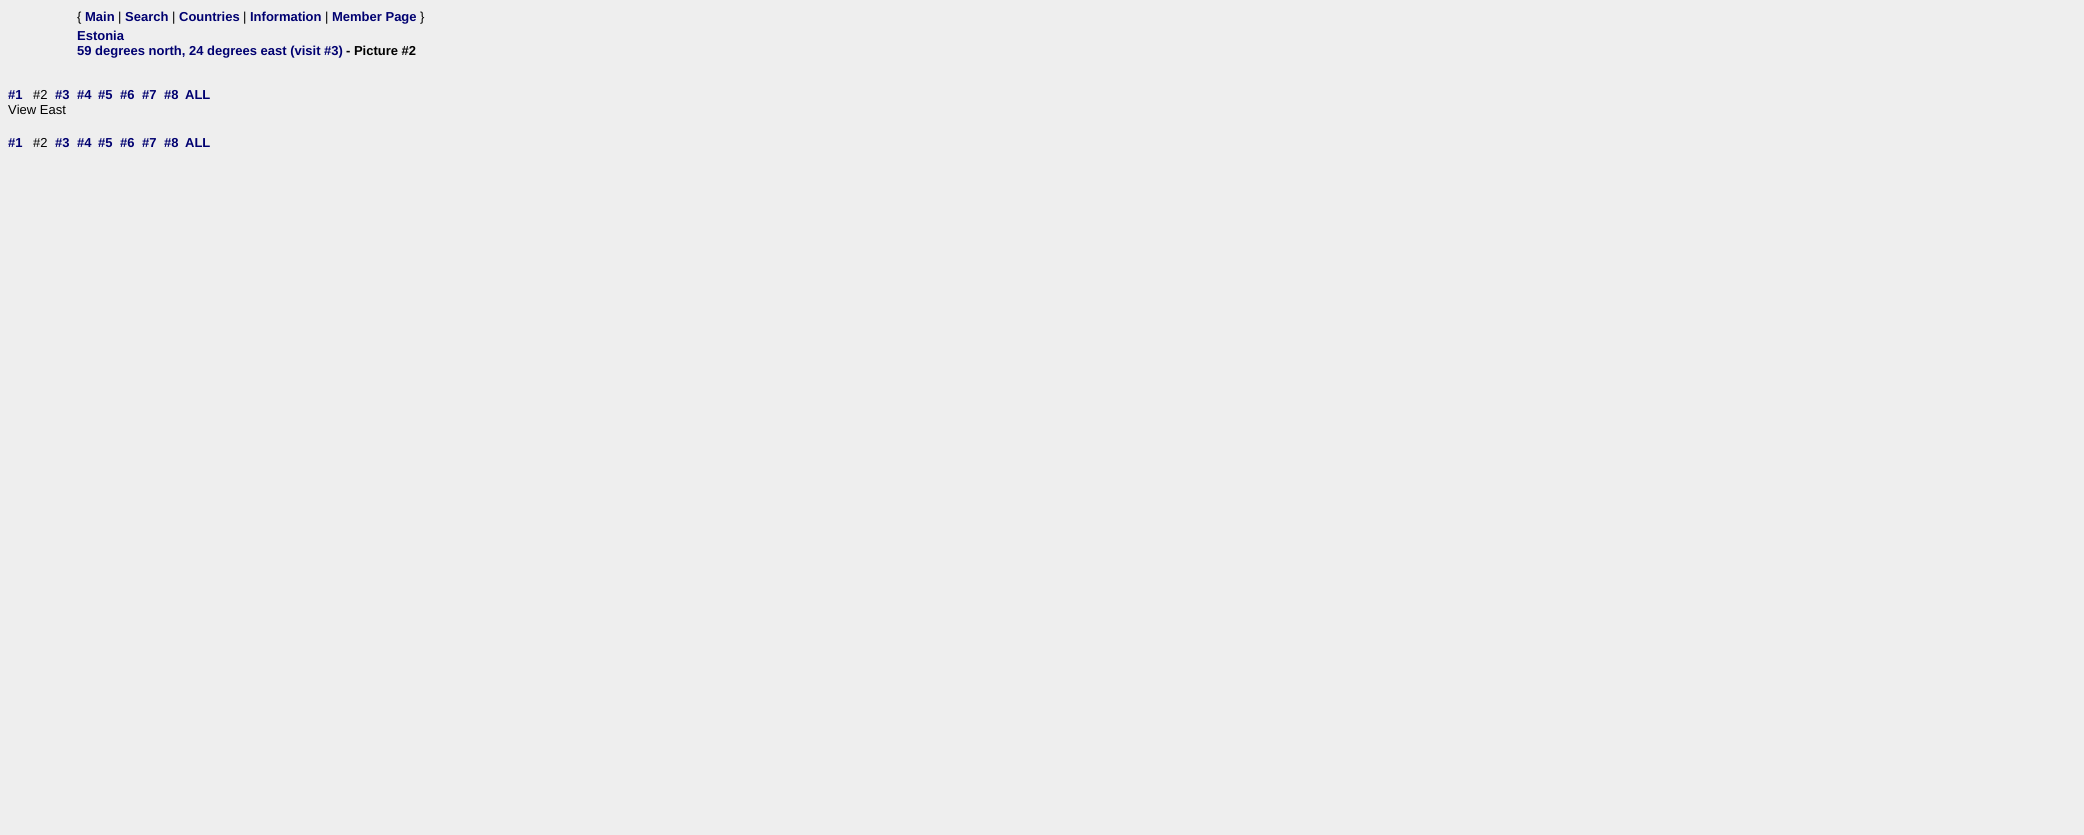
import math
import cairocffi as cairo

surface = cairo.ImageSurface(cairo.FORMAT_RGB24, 2084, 835)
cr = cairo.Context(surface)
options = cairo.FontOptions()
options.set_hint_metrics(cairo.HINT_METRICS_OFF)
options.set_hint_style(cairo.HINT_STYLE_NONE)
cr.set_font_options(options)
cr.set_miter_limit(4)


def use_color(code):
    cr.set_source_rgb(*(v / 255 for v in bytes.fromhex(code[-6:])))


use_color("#eeeeee")
cr.paint()
cr.select_font_face("Liberation Sans")
cr.set_font_size(13)
use_color("#000000")
cr.move_to(77, 21)
cr.show_text("{")
cr.select_font_face("Liberation Sans", cairo.FONT_SLANT_NORMAL, cairo.FONT_WEIGHT_BOLD)
use_color("#000070")
cr.move_to(85, 21)
cr.show_text("Main")
cr.select_font_face("Liberation Sans")
use_color("#000000")
cr.move_to(118, 21)
cr.show_text("|")
cr.select_font_face("Liberation Sans", cairo.FONT_SLANT_NORMAL, cairo.FONT_WEIGHT_BOLD)
use_color("#000070")
cr.move_to(125, 21)
cr.show_text("Search")
cr.select_font_face("Liberation Sans")
use_color("#000000")
cr.move_to(172, 21)
cr.show_text("|")
cr.select_font_face("Liberation Sans", cairo.FONT_SLANT_NORMAL, cairo.FONT_WEIGHT_BOLD)
use_color("#000070")
cr.move_to(179, 21)
cr.show_text("Countries")
cr.select_font_face("Liberation Sans")
use_color("#000000")
cr.move_to(243, 21)
cr.show_text("|")
cr.select_font_face("Liberation Sans", cairo.FONT_SLANT_NORMAL, cairo.FONT_WEIGHT_BOLD)
use_color("#000070")
cr.move_to(250, 21)
cr.show_text("Information")
cr.select_font_face("Liberation Sans")
use_color("#000000")
cr.move_to(325, 21)
cr.show_text("|")
cr.select_font_face("Liberation Sans", cairo.FONT_SLANT_NORMAL, cairo.FONT_WEIGHT_BOLD)
use_color("#000070")
cr.move_to(332, 21)
cr.show_text("Member Page")
cr.select_font_face("Liberation Sans")
use_color("#000000")
cr.move_to(420, 21)
cr.show_text("}")
cr.select_font_face("Liberation Sans", cairo.FONT_SLANT_NORMAL, cairo.FONT_WEIGHT_BOLD)
use_color("#000070")
cr.move_to(77, 40)
cr.show_text("Estonia")
cr.move_to(77, 55)
cr.show_text("59 degrees north, 24 degrees east (visit #3)")
use_color("#000000")
cr.move_to(346, 55)
cr.show_text("- Picture #2")
use_color("#000070")
cr.move_to(8, 99)
cr.show_text("#1")
cr.select_font_face("Liberation Sans")
use_color("#000000")
cr.move_to(33, 99)
cr.show_text("#2")
cr.select_font_face("Liberation Sans", cairo.FONT_SLANT_NORMAL, cairo.FONT_WEIGHT_BOLD)
use_color("#000070")
cr.move_to(55, 99)
cr.show_text("#3")
cr.move_to(77, 99)
cr.show_text("#4")
cr.move_to(98, 99)
cr.show_text("#5")
cr.move_to(120, 99)
cr.show_text("#6")
cr.move_to(142, 99)
cr.show_text("#7")
cr.move_to(164, 99)
cr.show_text("#8")
cr.move_to(185, 99)
cr.show_text("ALL")
cr.select_font_face("Liberation Sans")
use_color("#000000")
cr.move_to(8, 114)
cr.show_text("View East")
cr.select_font_face("Liberation Sans", cairo.FONT_SLANT_NORMAL, cairo.FONT_WEIGHT_BOLD)
use_color("#000070")
cr.move_to(8, 147)
cr.show_text("#1")
cr.select_font_face("Liberation Sans")
use_color("#000000")
cr.move_to(33, 147)
cr.show_text("#2")
cr.select_font_face("Liberation Sans", cairo.FONT_SLANT_NORMAL, cairo.FONT_WEIGHT_BOLD)
use_color("#000070")
cr.move_to(55, 147)
cr.show_text("#3")
cr.move_to(77, 147)
cr.show_text("#4")
cr.move_to(98, 147)
cr.show_text("#5")
cr.move_to(120, 147)
cr.show_text("#6")
cr.move_to(142, 147)
cr.show_text("#7")
cr.move_to(164, 147)
cr.show_text("#8")
cr.move_to(185, 147)
cr.show_text("ALL")
surface.write_to_png("result.png")
